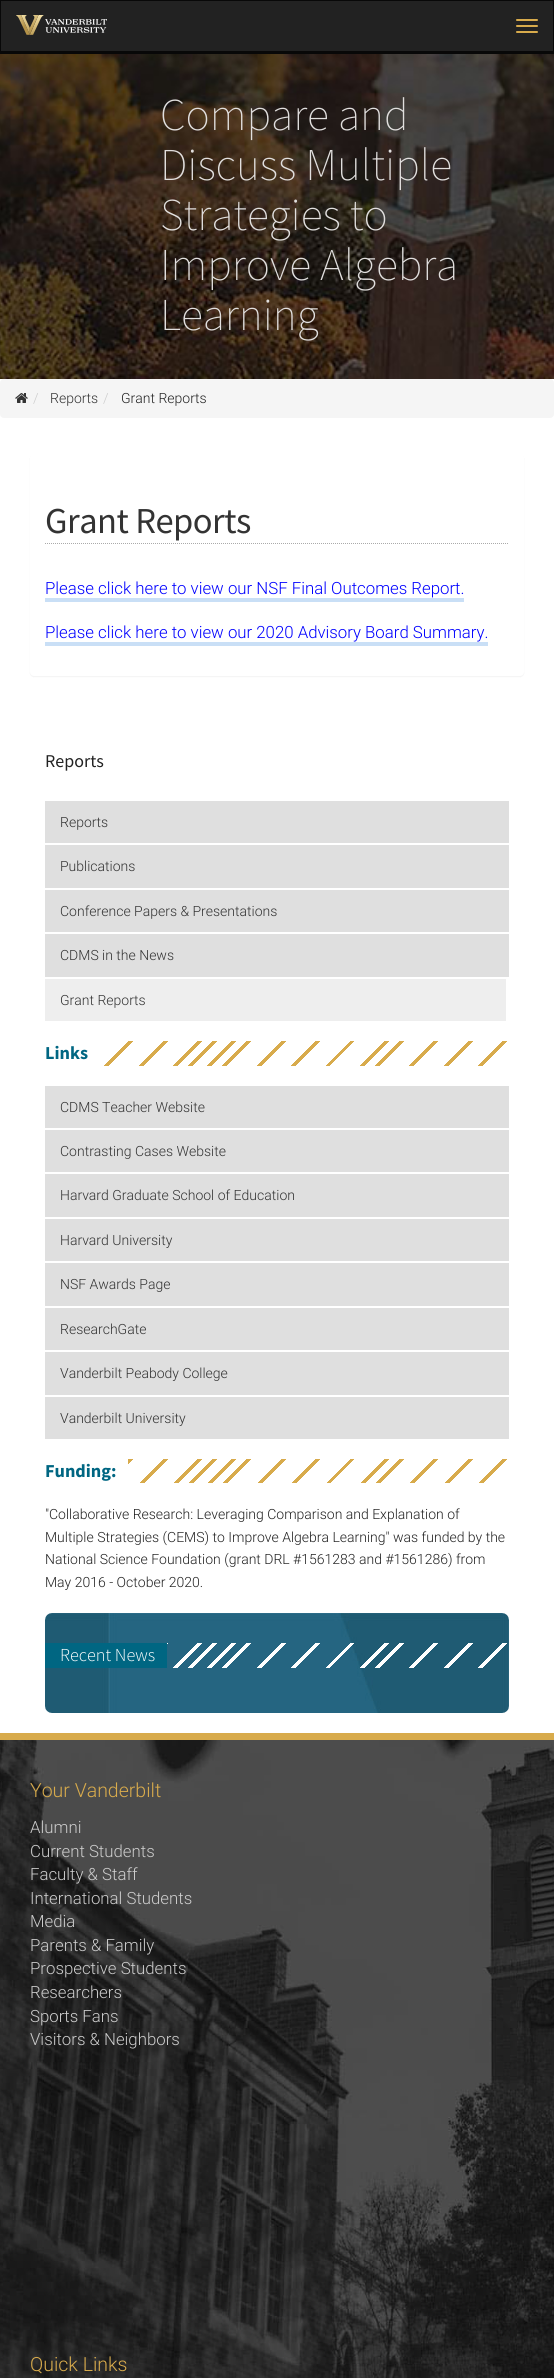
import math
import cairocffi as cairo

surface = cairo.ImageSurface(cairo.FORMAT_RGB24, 554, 2378)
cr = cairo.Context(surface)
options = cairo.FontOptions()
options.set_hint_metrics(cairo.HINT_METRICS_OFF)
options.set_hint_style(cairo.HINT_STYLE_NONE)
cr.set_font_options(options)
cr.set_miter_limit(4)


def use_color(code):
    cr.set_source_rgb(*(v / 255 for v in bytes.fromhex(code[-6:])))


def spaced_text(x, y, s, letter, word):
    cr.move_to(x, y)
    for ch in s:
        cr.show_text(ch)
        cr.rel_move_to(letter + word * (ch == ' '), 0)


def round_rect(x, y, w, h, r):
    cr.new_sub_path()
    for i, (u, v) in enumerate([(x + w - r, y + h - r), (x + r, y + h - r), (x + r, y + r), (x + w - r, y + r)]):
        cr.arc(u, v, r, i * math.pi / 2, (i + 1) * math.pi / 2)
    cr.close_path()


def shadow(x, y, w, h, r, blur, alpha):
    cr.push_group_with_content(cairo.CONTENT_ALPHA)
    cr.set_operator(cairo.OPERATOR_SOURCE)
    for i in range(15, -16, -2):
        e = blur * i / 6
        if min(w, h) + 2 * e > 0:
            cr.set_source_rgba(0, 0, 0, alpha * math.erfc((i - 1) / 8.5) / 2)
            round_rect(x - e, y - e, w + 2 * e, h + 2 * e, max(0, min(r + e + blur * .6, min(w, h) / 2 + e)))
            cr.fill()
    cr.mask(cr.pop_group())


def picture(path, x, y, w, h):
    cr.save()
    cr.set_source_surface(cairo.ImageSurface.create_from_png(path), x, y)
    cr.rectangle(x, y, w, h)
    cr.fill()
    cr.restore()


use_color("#ffffff")
cr.paint()
use_color("#222222")
cr.rectangle(0.5, 0.5, 553, 51)
cr.fill_preserve()
use_color("#080808")
cr.set_line_width(1)
cr.stroke()
picture("img1.png", 16, 15, 91, 20)
use_color("#d8ab4c")
round_rect(516, 19, 22, 2, 1)
cr.fill()
round_rect(516, 25, 22, 2, 1)
cr.fill()
round_rect(516, 31, 22, 2, 1)
cr.fill()
use_color("#080808")
cr.rectangle(0, 52, 554, 2)
cr.fill()
picture("img2.png", 0, 54, 554, 325)
cr.select_font_face("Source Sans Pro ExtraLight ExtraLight")
cr.set_font_size(45.5)
use_color("#e1dfde")
cr.move_to(160, 130)
cr.show_text("Compare and")
cr.move_to(160, 180)
cr.show_text("Discuss Multiple")
cr.move_to(160, 230)
cr.show_text("Strategies to")
cr.move_to(160, 280)
cr.show_text("Improve Algebra")
cr.move_to(160, 330)
cr.show_text("Learning")
use_color("#f5f5f5")
round_rect(0, 379, 554, 39, 4)
cr.fill()
picture("img3.png", 15, 393, 13, 10)
cr.select_font_face("Roboto Light")
cr.set_font_size(14)
use_color("#cccccc")
cr.move_to(33, 403)
cr.show_text("/")
use_color("#333333")
cr.move_to(50, 403)
cr.show_text("Reports")
use_color("#cccccc")
cr.move_to(103, 403)
cr.show_text("/")
use_color("#222222")
cr.move_to(121, 403)
cr.show_text("Grant Reports")
use_color("#000000")
shadow(30, 455, 494, 222, 4, 0.5, 0.05)
use_color("#ffffff")
round_rect(30, 454, 494, 222, 4)
cr.fill()
cr.new_path()
cr.move_to(45, 543.5)
cr.line_to(509, 543.5)
use_color("#aaaaaa")
cr.set_dash([1, 1])
cr.stroke()
cr.select_font_face("Source Sans Pro")
cr.set_font_size(36.5)
use_color("#333333")
spaced_text(45, 533, "Grant Reports", -0.5, 0)
cr.select_font_face("Roboto Light")
cr.set_font_size(16.8)
use_color("#0000ff")
cr.move_to(45, 594)
cr.show_text("Please click here to view our NSF Final Outcomes Report.")
use_color("#c9dff6")
cr.rectangle(45, 598, 419, 4)
cr.fill()
use_color("#0000ff")
cr.move_to(45, 638)
cr.show_text("Please click here to view our 2020 Advisory Board Summary.")
use_color("#c9dff6")
cr.rectangle(45, 642, 443, 4)
cr.fill()
cr.select_font_face("Source Sans Pro")
cr.set_font_size(18)
use_color("#222222")
cr.move_to(45, 767)
cr.show_text("Reports")
use_color("#dfdfdf")
cr.rectangle(45, 801, 464, 42)
cr.fill()
cr.select_font_face("Roboto Light")
cr.set_font_size(14)
use_color("#333333")
cr.move_to(60, 827)
cr.show_text("Reports")
use_color("#dfdfdf")
cr.rectangle(45, 845, 464, 43)
cr.fill()
use_color("#333333")
cr.move_to(60, 871)
cr.show_text("Publications")
use_color("#dfdfdf")
cr.rectangle(45, 890, 464, 42)
cr.fill()
use_color("#333333")
cr.move_to(60, 916)
cr.show_text("Conference Papers & Presentations")
use_color("#dfdfdf")
cr.rectangle(45, 934, 464, 43)
cr.fill()
use_color("#333333")
cr.move_to(60, 960)
cr.show_text("CDMS in the News")
use_color("#eeeeee")
cr.rectangle(45, 979, 461, 42)
cr.fill()
use_color("#333333")
cr.move_to(60, 1005)
cr.show_text("Grant Reports")
gradient = cairo.LinearGradient(155, 931, 401, 1177)
gradient.add_color_stop_rgba(0, 0.847, 0.671, 0.298, 1)
gradient.add_color_stop_rgba(0.01, 0.847, 0.671, 0.298, 1)
gradient.add_color_stop_rgba(0.01, 1, 1, 1, 1)
gradient.add_color_stop_rgba(0.03, 1, 1, 1, 1)
gradient.add_color_stop_rgba(0.03, 0.847, 0.671, 0.298, 1)
gradient.add_color_stop_rgba(0.04, 0.847, 0.671, 0.298, 1)
gradient.add_color_stop_rgba(0.04, 1, 1, 1, 1)
gradient.add_color_stop_rgba(0.07, 1, 1, 1, 1)
gradient.add_color_stop_rgba(0.07, 0.847, 0.671, 0.298, 1)
gradient.add_color_stop_rgba(0.07, 0.847, 0.671, 0.298, 1)
gradient.add_color_stop_rgba(0.07, 1, 1, 1, 1)
gradient.add_color_stop_rgba(0.1, 1, 1, 1, 1)
gradient.add_color_stop_rgba(0.1, 0.847, 0.671, 0.298, 1)
gradient.add_color_stop_rgba(0.11, 0.847, 0.671, 0.298, 1)
gradient.add_color_stop_rgba(0.11, 1, 1, 1, 1)
gradient.add_color_stop_rgba(0.14, 1, 1, 1, 1)
gradient.add_color_stop_rgba(0.14, 0.847, 0.671, 0.298, 1)
gradient.add_color_stop_rgba(0.14, 0.847, 0.671, 0.298, 1)
gradient.add_color_stop_rgba(0.14, 1, 1, 1, 1)
gradient.add_color_stop_rgba(0.17, 1, 1, 1, 1)
gradient.add_color_stop_rgba(0.17, 0.847, 0.671, 0.298, 1)
gradient.add_color_stop_rgba(0.18, 0.847, 0.671, 0.298, 1)
gradient.add_color_stop_rgba(0.18, 1, 1, 1, 1)
gradient.add_color_stop_rgba(0.21, 1, 1, 1, 1)
gradient.add_color_stop_rgba(0.21, 0.847, 0.671, 0.298, 1)
gradient.add_color_stop_rgba(0.21, 0.847, 0.671, 0.298, 1)
gradient.add_color_stop_rgba(0.21, 1, 1, 1, 1)
gradient.add_color_stop_rgba(0.24, 1, 1, 1, 1)
gradient.add_color_stop_rgba(0.24, 0.847, 0.671, 0.298, 1)
gradient.add_color_stop_rgba(0.25, 0.847, 0.671, 0.298, 1)
gradient.add_color_stop_rgba(0.25, 1, 1, 1, 1)
gradient.add_color_stop_rgba(0.28, 1, 1, 1, 1)
gradient.add_color_stop_rgba(0.28, 0.847, 0.671, 0.298, 1)
gradient.add_color_stop_rgba(0.28, 0.847, 0.671, 0.298, 1)
gradient.add_color_stop_rgba(0.28, 1, 1, 1, 1)
gradient.add_color_stop_rgba(0.31, 1, 1, 1, 1)
gradient.add_color_stop_rgba(0.31, 0.847, 0.671, 0.298, 1)
gradient.add_color_stop_rgba(0.32, 0.847, 0.671, 0.298, 1)
gradient.add_color_stop_rgba(0.32, 1, 1, 1, 1)
gradient.add_color_stop_rgba(0.34, 1, 1, 1, 1)
gradient.add_color_stop_rgba(0.34, 0.847, 0.671, 0.298, 1)
gradient.add_color_stop_rgba(0.35, 0.847, 0.671, 0.298, 1)
gradient.add_color_stop_rgba(0.35, 1, 1, 1, 1)
gradient.add_color_stop_rgba(0.38, 1, 1, 1, 1)
gradient.add_color_stop_rgba(0.38, 0.847, 0.671, 0.298, 1)
gradient.add_color_stop_rgba(0.39, 0.847, 0.671, 0.298, 1)
gradient.add_color_stop_rgba(0.39, 1, 1, 1, 1)
gradient.add_color_stop_rgba(0.41, 1, 1, 1, 1)
gradient.add_color_stop_rgba(0.41, 0.847, 0.671, 0.298, 1)
gradient.add_color_stop_rgba(0.42, 0.847, 0.671, 0.298, 1)
gradient.add_color_stop_rgba(0.42, 1, 1, 1, 1)
gradient.add_color_stop_rgba(0.45, 1, 1, 1, 1)
gradient.add_color_stop_rgba(0.45, 0.847, 0.671, 0.298, 1)
gradient.add_color_stop_rgba(0.45, 0.847, 0.671, 0.298, 1)
gradient.add_color_stop_rgba(0.45, 1, 1, 1, 1)
gradient.add_color_stop_rgba(0.48, 1, 1, 1, 1)
gradient.add_color_stop_rgba(0.48, 0.847, 0.671, 0.298, 1)
gradient.add_color_stop_rgba(0.49, 0.847, 0.671, 0.298, 1)
gradient.add_color_stop_rgba(0.49, 1, 1, 1, 1)
gradient.add_color_stop_rgba(0.52, 1, 1, 1, 1)
gradient.add_color_stop_rgba(0.52, 0.847, 0.671, 0.298, 1)
gradient.add_color_stop_rgba(0.52, 0.847, 0.671, 0.298, 1)
gradient.add_color_stop_rgba(0.52, 1, 1, 1, 1)
gradient.add_color_stop_rgba(0.55, 1, 1, 1, 1)
gradient.add_color_stop_rgba(0.55, 0.847, 0.671, 0.298, 1)
gradient.add_color_stop_rgba(0.56, 0.847, 0.671, 0.298, 1)
gradient.add_color_stop_rgba(0.56, 1, 1, 1, 1)
gradient.add_color_stop_rgba(0.59, 1, 1, 1, 1)
gradient.add_color_stop_rgba(0.59, 0.847, 0.671, 0.298, 1)
gradient.add_color_stop_rgba(0.59, 0.847, 0.671, 0.298, 1)
gradient.add_color_stop_rgba(0.59, 1, 1, 1, 1)
gradient.add_color_stop_rgba(0.62, 1, 1, 1, 1)
gradient.add_color_stop_rgba(0.62, 0.847, 0.671, 0.298, 1)
gradient.add_color_stop_rgba(0.63, 0.847, 0.671, 0.298, 1)
gradient.add_color_stop_rgba(0.63, 1, 1, 1, 1)
gradient.add_color_stop_rgba(0.66, 1, 1, 1, 1)
gradient.add_color_stop_rgba(0.66, 0.847, 0.671, 0.298, 1)
gradient.add_color_stop_rgba(0.66, 0.847, 0.671, 0.298, 1)
gradient.add_color_stop_rgba(0.66, 1, 1, 1, 1)
gradient.add_color_stop_rgba(0.69, 1, 1, 1, 1)
gradient.add_color_stop_rgba(0.69, 0.847, 0.671, 0.298, 1)
gradient.add_color_stop_rgba(0.7, 0.847, 0.671, 0.298, 1)
gradient.add_color_stop_rgba(0.7, 1, 1, 1, 1)
gradient.add_color_stop_rgba(0.72, 1, 1, 1, 1)
gradient.add_color_stop_rgba(0.72, 0.847, 0.671, 0.298, 1)
gradient.add_color_stop_rgba(0.73, 0.847, 0.671, 0.298, 1)
gradient.add_color_stop_rgba(0.73, 1, 1, 1, 1)
gradient.add_color_stop_rgba(0.76, 1, 1, 1, 1)
gradient.add_color_stop_rgba(0.76, 0.847, 0.671, 0.298, 1)
gradient.add_color_stop_rgba(0.76, 0.847, 0.671, 0.298, 1)
gradient.add_color_stop_rgba(0.76, 1, 1, 1, 1)
gradient.add_color_stop_rgba(0.79, 1, 1, 1, 1)
gradient.add_color_stop_rgba(0.79, 0.847, 0.671, 0.298, 1)
gradient.add_color_stop_rgba(0.8, 0.847, 0.671, 0.298, 1)
gradient.add_color_stop_rgba(0.8, 1, 1, 1, 1)
gradient.add_color_stop_rgba(0.83, 1, 1, 1, 1)
gradient.add_color_stop_rgba(0.83, 0.847, 0.671, 0.298, 1)
gradient.add_color_stop_rgba(0.83, 0.847, 0.671, 0.298, 1)
gradient.add_color_stop_rgba(0.83, 1, 1, 1, 1)
gradient.add_color_stop_rgba(0.86, 1, 1, 1, 1)
gradient.add_color_stop_rgba(0.86, 0.847, 0.671, 0.298, 1)
gradient.add_color_stop_rgba(0.87, 0.847, 0.671, 0.298, 1)
gradient.add_color_stop_rgba(0.87, 1, 1, 1, 1)
gradient.add_color_stop_rgba(0.9, 1, 1, 1, 1)
gradient.add_color_stop_rgba(0.9, 0.847, 0.671, 0.298, 1)
gradient.add_color_stop_rgba(0.9, 0.847, 0.671, 0.298, 1)
gradient.add_color_stop_rgba(0.9, 1, 1, 1, 1)
gradient.add_color_stop_rgba(0.93, 1, 1, 1, 1)
gradient.add_color_stop_rgba(0.93, 0.847, 0.671, 0.298, 1)
gradient.add_color_stop_rgba(0.94, 0.847, 0.671, 0.298, 1)
gradient.add_color_stop_rgba(0.94, 1, 1, 1, 1)
gradient.add_color_stop_rgba(0.97, 1, 1, 1, 1)
gradient.add_color_stop_rgba(0.97, 0.847, 0.671, 0.298, 1)
gradient.add_color_stop_rgba(0.97, 0.847, 0.671, 0.298, 1)
gradient.add_color_stop_rgba(0.97, 1, 1, 1, 1)
gradient.add_color_stop_rgba(1, 1, 1, 1, 1)
cr.set_source(gradient)
cr.rectangle(104, 1041, 403, 25)
cr.fill()
cr.select_font_face("Source Sans Pro", cairo.FONT_SLANT_NORMAL, cairo.FONT_WEIGHT_BOLD)
cr.set_font_size(18.25)
use_color("#006682")
cr.move_to(45, 1059)
cr.show_text("Links")
use_color("#dfdfdf")
cr.rectangle(45, 1086, 464, 42)
cr.fill()
cr.select_font_face("Roboto Light")
cr.set_font_size(14)
use_color("#333333")
cr.move_to(60, 1112)
cr.show_text("CDMS Teacher Website")
use_color("#dfdfdf")
cr.rectangle(45, 1130, 464, 42)
cr.fill()
use_color("#333333")
cr.move_to(60, 1156)
cr.show_text("Contrasting Cases Website")
use_color("#dfdfdf")
cr.rectangle(45, 1174, 464, 43)
cr.fill()
use_color("#333333")
cr.move_to(60, 1200)
cr.show_text("Harvard Graduate School of Education")
use_color("#dfdfdf")
cr.rectangle(45, 1219, 464, 42)
cr.fill()
use_color("#333333")
cr.move_to(60, 1245)
cr.show_text("Harvard University")
use_color("#dfdfdf")
cr.rectangle(45, 1263, 464, 43)
cr.fill()
use_color("#333333")
cr.move_to(60, 1289)
cr.show_text("NSF Awards Page")
use_color("#dfdfdf")
cr.rectangle(45, 1308, 464, 42)
cr.fill()
use_color("#333333")
cr.move_to(60, 1334)
cr.show_text("ResearchGate")
use_color("#dfdfdf")
cr.rectangle(45, 1352, 464, 43)
cr.fill()
use_color("#333333")
cr.move_to(60, 1378)
cr.show_text("Vanderbilt Peabody College")
use_color("#dfdfdf")
cr.rectangle(45, 1397, 464, 42)
cr.fill()
use_color("#333333")
cr.move_to(60, 1423)
cr.show_text("Vanderbilt University")
gradient = cairo.LinearGradient(155, 1349, 401, 1595)
gradient.add_color_stop_rgba(0, 0.847, 0.671, 0.298, 1)
gradient.add_color_stop_rgba(0.01, 0.847, 0.671, 0.298, 1)
gradient.add_color_stop_rgba(0.01, 1, 1, 1, 1)
gradient.add_color_stop_rgba(0.03, 1, 1, 1, 1)
gradient.add_color_stop_rgba(0.03, 0.847, 0.671, 0.298, 1)
gradient.add_color_stop_rgba(0.04, 0.847, 0.671, 0.298, 1)
gradient.add_color_stop_rgba(0.04, 1, 1, 1, 1)
gradient.add_color_stop_rgba(0.07, 1, 1, 1, 1)
gradient.add_color_stop_rgba(0.07, 0.847, 0.671, 0.298, 1)
gradient.add_color_stop_rgba(0.07, 0.847, 0.671, 0.298, 1)
gradient.add_color_stop_rgba(0.07, 1, 1, 1, 1)
gradient.add_color_stop_rgba(0.1, 1, 1, 1, 1)
gradient.add_color_stop_rgba(0.1, 0.847, 0.671, 0.298, 1)
gradient.add_color_stop_rgba(0.11, 0.847, 0.671, 0.298, 1)
gradient.add_color_stop_rgba(0.11, 1, 1, 1, 1)
gradient.add_color_stop_rgba(0.14, 1, 1, 1, 1)
gradient.add_color_stop_rgba(0.14, 0.847, 0.671, 0.298, 1)
gradient.add_color_stop_rgba(0.14, 0.847, 0.671, 0.298, 1)
gradient.add_color_stop_rgba(0.14, 1, 1, 1, 1)
gradient.add_color_stop_rgba(0.17, 1, 1, 1, 1)
gradient.add_color_stop_rgba(0.17, 0.847, 0.671, 0.298, 1)
gradient.add_color_stop_rgba(0.18, 0.847, 0.671, 0.298, 1)
gradient.add_color_stop_rgba(0.18, 1, 1, 1, 1)
gradient.add_color_stop_rgba(0.21, 1, 1, 1, 1)
gradient.add_color_stop_rgba(0.21, 0.847, 0.671, 0.298, 1)
gradient.add_color_stop_rgba(0.21, 0.847, 0.671, 0.298, 1)
gradient.add_color_stop_rgba(0.21, 1, 1, 1, 1)
gradient.add_color_stop_rgba(0.24, 1, 1, 1, 1)
gradient.add_color_stop_rgba(0.24, 0.847, 0.671, 0.298, 1)
gradient.add_color_stop_rgba(0.25, 0.847, 0.671, 0.298, 1)
gradient.add_color_stop_rgba(0.25, 1, 1, 1, 1)
gradient.add_color_stop_rgba(0.28, 1, 1, 1, 1)
gradient.add_color_stop_rgba(0.28, 0.847, 0.671, 0.298, 1)
gradient.add_color_stop_rgba(0.28, 0.847, 0.671, 0.298, 1)
gradient.add_color_stop_rgba(0.28, 1, 1, 1, 1)
gradient.add_color_stop_rgba(0.31, 1, 1, 1, 1)
gradient.add_color_stop_rgba(0.31, 0.847, 0.671, 0.298, 1)
gradient.add_color_stop_rgba(0.32, 0.847, 0.671, 0.298, 1)
gradient.add_color_stop_rgba(0.32, 1, 1, 1, 1)
gradient.add_color_stop_rgba(0.34, 1, 1, 1, 1)
gradient.add_color_stop_rgba(0.34, 0.847, 0.671, 0.298, 1)
gradient.add_color_stop_rgba(0.35, 0.847, 0.671, 0.298, 1)
gradient.add_color_stop_rgba(0.35, 1, 1, 1, 1)
gradient.add_color_stop_rgba(0.38, 1, 1, 1, 1)
gradient.add_color_stop_rgba(0.38, 0.847, 0.671, 0.298, 1)
gradient.add_color_stop_rgba(0.39, 0.847, 0.671, 0.298, 1)
gradient.add_color_stop_rgba(0.39, 1, 1, 1, 1)
gradient.add_color_stop_rgba(0.41, 1, 1, 1, 1)
gradient.add_color_stop_rgba(0.41, 0.847, 0.671, 0.298, 1)
gradient.add_color_stop_rgba(0.42, 0.847, 0.671, 0.298, 1)
gradient.add_color_stop_rgba(0.42, 1, 1, 1, 1)
gradient.add_color_stop_rgba(0.45, 1, 1, 1, 1)
gradient.add_color_stop_rgba(0.45, 0.847, 0.671, 0.298, 1)
gradient.add_color_stop_rgba(0.45, 0.847, 0.671, 0.298, 1)
gradient.add_color_stop_rgba(0.45, 1, 1, 1, 1)
gradient.add_color_stop_rgba(0.48, 1, 1, 1, 1)
gradient.add_color_stop_rgba(0.48, 0.847, 0.671, 0.298, 1)
gradient.add_color_stop_rgba(0.49, 0.847, 0.671, 0.298, 1)
gradient.add_color_stop_rgba(0.49, 1, 1, 1, 1)
gradient.add_color_stop_rgba(0.52, 1, 1, 1, 1)
gradient.add_color_stop_rgba(0.52, 0.847, 0.671, 0.298, 1)
gradient.add_color_stop_rgba(0.52, 0.847, 0.671, 0.298, 1)
gradient.add_color_stop_rgba(0.52, 1, 1, 1, 1)
gradient.add_color_stop_rgba(0.55, 1, 1, 1, 1)
gradient.add_color_stop_rgba(0.55, 0.847, 0.671, 0.298, 1)
gradient.add_color_stop_rgba(0.56, 0.847, 0.671, 0.298, 1)
gradient.add_color_stop_rgba(0.56, 1, 1, 1, 1)
gradient.add_color_stop_rgba(0.59, 1, 1, 1, 1)
gradient.add_color_stop_rgba(0.59, 0.847, 0.671, 0.298, 1)
gradient.add_color_stop_rgba(0.59, 0.847, 0.671, 0.298, 1)
gradient.add_color_stop_rgba(0.59, 1, 1, 1, 1)
gradient.add_color_stop_rgba(0.62, 1, 1, 1, 1)
gradient.add_color_stop_rgba(0.62, 0.847, 0.671, 0.298, 1)
gradient.add_color_stop_rgba(0.63, 0.847, 0.671, 0.298, 1)
gradient.add_color_stop_rgba(0.63, 1, 1, 1, 1)
gradient.add_color_stop_rgba(0.66, 1, 1, 1, 1)
gradient.add_color_stop_rgba(0.66, 0.847, 0.671, 0.298, 1)
gradient.add_color_stop_rgba(0.66, 0.847, 0.671, 0.298, 1)
gradient.add_color_stop_rgba(0.66, 1, 1, 1, 1)
gradient.add_color_stop_rgba(0.69, 1, 1, 1, 1)
gradient.add_color_stop_rgba(0.69, 0.847, 0.671, 0.298, 1)
gradient.add_color_stop_rgba(0.7, 0.847, 0.671, 0.298, 1)
gradient.add_color_stop_rgba(0.7, 1, 1, 1, 1)
gradient.add_color_stop_rgba(0.72, 1, 1, 1, 1)
gradient.add_color_stop_rgba(0.72, 0.847, 0.671, 0.298, 1)
gradient.add_color_stop_rgba(0.73, 0.847, 0.671, 0.298, 1)
gradient.add_color_stop_rgba(0.73, 1, 1, 1, 1)
gradient.add_color_stop_rgba(0.76, 1, 1, 1, 1)
gradient.add_color_stop_rgba(0.76, 0.847, 0.671, 0.298, 1)
gradient.add_color_stop_rgba(0.76, 0.847, 0.671, 0.298, 1)
gradient.add_color_stop_rgba(0.76, 1, 1, 1, 1)
gradient.add_color_stop_rgba(0.79, 1, 1, 1, 1)
gradient.add_color_stop_rgba(0.79, 0.847, 0.671, 0.298, 1)
gradient.add_color_stop_rgba(0.8, 0.847, 0.671, 0.298, 1)
gradient.add_color_stop_rgba(0.8, 1, 1, 1, 1)
gradient.add_color_stop_rgba(0.83, 1, 1, 1, 1)
gradient.add_color_stop_rgba(0.83, 0.847, 0.671, 0.298, 1)
gradient.add_color_stop_rgba(0.83, 0.847, 0.671, 0.298, 1)
gradient.add_color_stop_rgba(0.83, 1, 1, 1, 1)
gradient.add_color_stop_rgba(0.86, 1, 1, 1, 1)
gradient.add_color_stop_rgba(0.86, 0.847, 0.671, 0.298, 1)
gradient.add_color_stop_rgba(0.87, 0.847, 0.671, 0.298, 1)
gradient.add_color_stop_rgba(0.87, 1, 1, 1, 1)
gradient.add_color_stop_rgba(0.9, 1, 1, 1, 1)
gradient.add_color_stop_rgba(0.9, 0.847, 0.671, 0.298, 1)
gradient.add_color_stop_rgba(0.9, 0.847, 0.671, 0.298, 1)
gradient.add_color_stop_rgba(0.9, 1, 1, 1, 1)
gradient.add_color_stop_rgba(0.93, 1, 1, 1, 1)
gradient.add_color_stop_rgba(0.93, 0.847, 0.671, 0.298, 1)
gradient.add_color_stop_rgba(0.94, 0.847, 0.671, 0.298, 1)
gradient.add_color_stop_rgba(0.94, 1, 1, 1, 1)
gradient.add_color_stop_rgba(0.97, 1, 1, 1, 1)
gradient.add_color_stop_rgba(0.97, 0.847, 0.671, 0.298, 1)
gradient.add_color_stop_rgba(0.97, 0.847, 0.671, 0.298, 1)
gradient.add_color_stop_rgba(0.97, 1, 1, 1, 1)
gradient.add_color_stop_rgba(1, 1, 1, 1, 1)
cr.set_source(gradient)
cr.rectangle(128, 1459, 379, 24)
cr.fill()
cr.select_font_face("Source Sans Pro", cairo.FONT_SLANT_NORMAL, cairo.FONT_WEIGHT_BOLD)
cr.set_font_size(18.25)
use_color("#006682")
cr.move_to(45, 1477)
cr.show_text("Funding:")
cr.select_font_face("Roboto Light")
cr.set_font_size(14)
use_color("#222222")
cr.move_to(45, 1519)
cr.show_text("\"Collaborative Research: Leveraging Comparison and Explanation of")
cr.move_to(45, 1542)
cr.show_text("Multiple Strategies (CEMS) to Improve Algebra Learning\" was funded by the")
cr.move_to(45, 1564)
cr.show_text("National Science Foundation (grant DRL #1561283 and #1561286) from")
cr.move_to(45, 1587)
cr.show_text("May 2016 - October 2020.")
picture("img4.png", 45, 1613, 464, 100)
use_color("#006682")
cr.rectangle(45, 1643, 122, 25)
cr.fill()
cr.select_font_face("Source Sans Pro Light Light")
cr.set_font_size(18.25)
use_color("#ffffff")
cr.move_to(60, 1661)
cr.show_text("Recent News")
picture("img5.png", 0, 1740, 554, 638)
use_color("#d8ab4c")
cr.rectangle(0, 1733, 554, 7)
cr.fill()
cr.select_font_face("Roboto Light")
cr.set_font_size(19.5)
cr.move_to(30, 1797)
cr.show_text("Your Vanderbilt")
cr.set_font_size(16.8)
use_color("#cccccc")
cr.move_to(30, 1833)
cr.show_text("Alumni")
cr.move_to(30, 1857)
cr.show_text("Current Students")
cr.move_to(30, 1880)
cr.show_text("Faculty & Staff")
cr.move_to(30, 1904)
cr.show_text("International Students")
cr.move_to(30, 1927)
cr.show_text("Media")
cr.move_to(30, 1951)
cr.show_text("Parents & Family")
cr.move_to(30, 1974)
cr.show_text("Prospective Students")
cr.move_to(30, 1998)
cr.show_text("Researchers")
cr.move_to(30, 2022)
cr.show_text("Sports Fans")
cr.move_to(30, 2045)
cr.show_text("Visitors & Neighbors")
cr.set_font_size(19.5)
use_color("#d8ab4c")
cr.move_to(30, 2371)
cr.show_text("Quick Links")
surface.write_to_png("result.png")
